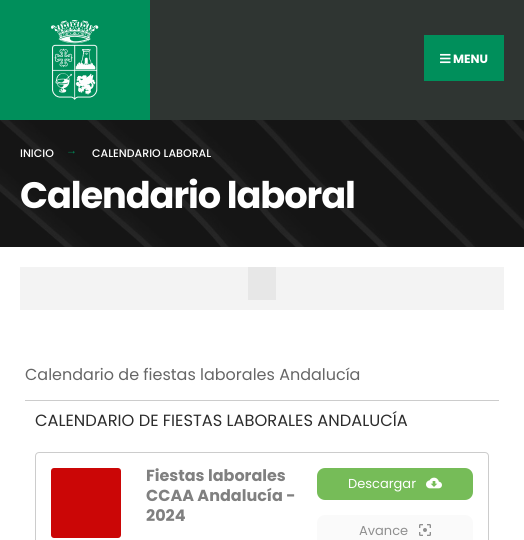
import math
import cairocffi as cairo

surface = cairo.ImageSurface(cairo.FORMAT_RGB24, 524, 540)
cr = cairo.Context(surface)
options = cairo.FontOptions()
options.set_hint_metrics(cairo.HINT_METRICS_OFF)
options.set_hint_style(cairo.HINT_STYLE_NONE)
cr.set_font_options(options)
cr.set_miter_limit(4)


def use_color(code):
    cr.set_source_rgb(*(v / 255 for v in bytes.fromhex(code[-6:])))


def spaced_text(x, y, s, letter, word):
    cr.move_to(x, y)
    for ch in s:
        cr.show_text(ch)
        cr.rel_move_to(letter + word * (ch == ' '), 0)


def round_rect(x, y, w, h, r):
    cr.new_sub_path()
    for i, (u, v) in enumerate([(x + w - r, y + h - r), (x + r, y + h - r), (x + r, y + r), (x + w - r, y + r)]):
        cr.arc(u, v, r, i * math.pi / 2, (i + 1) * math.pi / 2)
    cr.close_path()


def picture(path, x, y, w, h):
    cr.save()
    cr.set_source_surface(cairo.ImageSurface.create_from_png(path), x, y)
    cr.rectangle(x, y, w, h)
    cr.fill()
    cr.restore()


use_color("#ffffff")
cr.paint()
use_color("#2f3532")
cr.rectangle(150, 0, 374, 120)
cr.fill()
use_color("#008f5b")
cr.rectangle(0, 0, 150, 120)
cr.fill()
picture("img1.png", 51, 20, 48, 80)
cr.rectangle(424, 35, 80, 46)
cr.fill()
picture("img2.png", 440, 53, 11, 11)
cr.select_font_face("Poppins", cairo.FONT_SLANT_NORMAL, cairo.FONT_WEIGHT_BOLD)
cr.set_font_size(12)
use_color("#ffffff")
cr.move_to(453, 63)
cr.show_text("MENU")
use_color("#1e1e1e")
cr.rectangle(0, 120, 524, 127)
cr.fill()
picture("img3.png", 0, 120, 524, 127)
cr.select_font_face("Poppins Medium")
cr.set_font_size(11)
use_color("#ffffff")
cr.move_to(20, 157)
cr.show_text("INICIO")
cr.select_font_face("Liberation Serif")
use_color("#008f5b")
cr.move_to(66, 154)
cr.show_text("→")
cr.select_font_face("Poppins Medium")
use_color("#ffffff")
cr.move_to(92, 157)
cr.show_text("CALENDARIO LABORAL")
cr.select_font_face("Poppins", cairo.FONT_SLANT_NORMAL, cairo.FONT_WEIGHT_BOLD)
cr.set_font_size(36.75)
spaced_text(20, 208, "Calendario laboral", -1.1, 0)
use_color("#f3f3f3")
cr.rectangle(20, 267, 484, 43)
cr.fill()
use_color("#e7e7e7")
cr.rectangle(248, 267, 28, 33)
cr.fill()
use_color("#cccccc")
cr.rectangle(25, 400, 474, 1)
cr.fill()
cr.select_font_face("Poppins")
cr.set_font_size(16)
use_color("#666666")
cr.move_to(25, 380)
cr.show_text("Calendario de fiestas laborales Andalucía")
cr.set_font_size(16.25)
use_color("#2c2c2c")
cr.move_to(35, 426)
cr.show_text("CALENDARIO DE FIESTAS LABORALES ANDALUCÍA")
round_rect(35.5, 452.5, 453, 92, 3.5)
use_color("#cccccc")
cr.set_line_width(1)
cr.stroke()
use_color("#cb0606")
round_rect(51, 468, 70, 70, 3)
cr.fill()
cr.select_font_face("Poppins", cairo.FONT_SLANT_NORMAL, cairo.FONT_WEIGHT_BOLD)
cr.set_font_size(16)
use_color("#808080")
cr.move_to(146, 481)
cr.show_text("Fiestas laborales")
cr.move_to(146, 501)
cr.show_text("CCAA Andalucía -")
cr.move_to(146, 521)
cr.show_text("2024")
use_color("#76bc58")
round_rect(317, 468, 156, 32, 8)
cr.fill()
cr.select_font_face("Poppins")
cr.set_font_size(13)
use_color("#ffffff")
cr.move_to(348, 488)
cr.show_text("Descargar")
picture("img4.png", 426, 477, 16, 12)
use_color("#fafafa")
round_rect(317, 515, 156, 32, 8)
cr.fill()
use_color("#8f8f8f")
cr.move_to(359, 535)
cr.show_text("Avance")
picture("img5.png", 419, 524, 12, 12)
surface.write_to_png("result.png")
